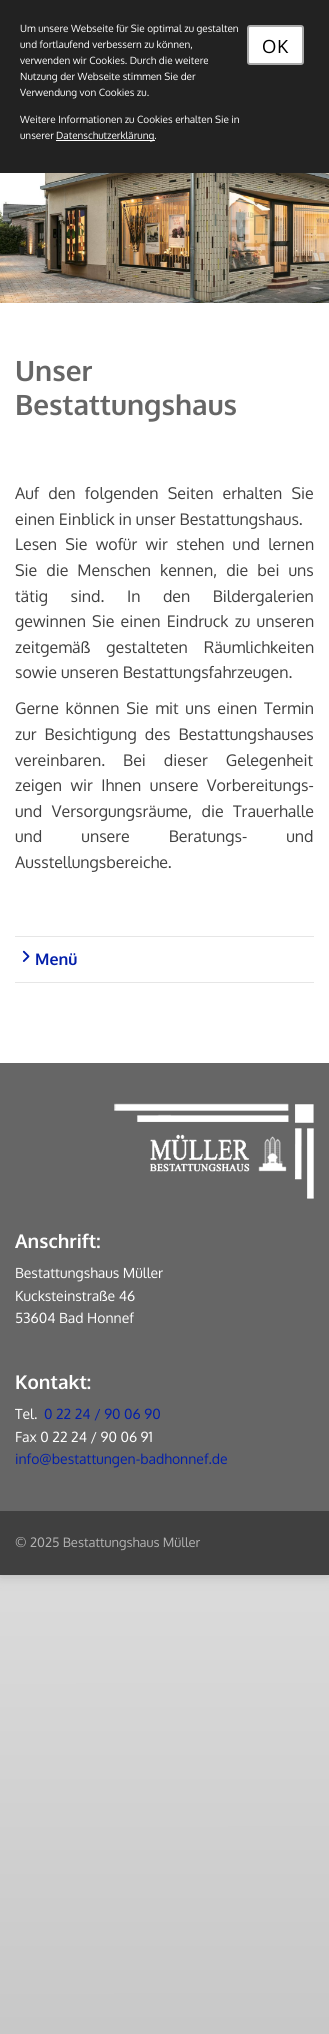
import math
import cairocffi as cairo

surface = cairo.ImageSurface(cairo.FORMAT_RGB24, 329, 2034)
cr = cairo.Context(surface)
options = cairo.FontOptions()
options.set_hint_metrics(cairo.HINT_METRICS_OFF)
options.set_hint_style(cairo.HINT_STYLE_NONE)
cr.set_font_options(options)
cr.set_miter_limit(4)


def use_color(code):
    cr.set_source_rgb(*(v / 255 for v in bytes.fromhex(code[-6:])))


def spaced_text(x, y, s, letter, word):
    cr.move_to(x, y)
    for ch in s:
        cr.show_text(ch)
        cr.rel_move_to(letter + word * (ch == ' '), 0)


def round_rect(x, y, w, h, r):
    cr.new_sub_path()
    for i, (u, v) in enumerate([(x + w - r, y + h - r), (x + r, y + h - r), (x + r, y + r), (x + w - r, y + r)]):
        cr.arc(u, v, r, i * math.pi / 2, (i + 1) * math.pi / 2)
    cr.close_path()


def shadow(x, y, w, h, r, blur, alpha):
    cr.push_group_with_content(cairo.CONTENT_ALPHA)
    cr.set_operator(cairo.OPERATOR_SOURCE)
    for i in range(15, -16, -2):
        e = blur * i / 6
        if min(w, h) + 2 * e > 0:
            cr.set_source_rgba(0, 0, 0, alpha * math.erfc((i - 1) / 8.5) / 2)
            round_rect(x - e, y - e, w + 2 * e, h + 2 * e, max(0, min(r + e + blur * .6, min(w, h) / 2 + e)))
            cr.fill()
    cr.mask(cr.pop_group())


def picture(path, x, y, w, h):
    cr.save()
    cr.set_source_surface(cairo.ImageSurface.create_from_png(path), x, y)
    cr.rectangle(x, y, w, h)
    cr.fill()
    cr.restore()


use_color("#ffffff")
cr.paint()
gradient = cairo.LinearGradient(164, 1575, 165, 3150)
gradient.add_color_stop_rgba(0, 0.859, 0.859, 0.859, 1)
gradient.add_color_stop_rgba(1, 0.6, 0.6, 0.6, 1)
cr.set_source(gradient)
cr.rectangle(0, 1575, 329, 459)
cr.fill()
use_color("#222222")
cr.rectangle(0, 0, 329, 173)
cr.fill()
cr.select_font_face("Oxygen")
cr.set_font_size(10)
use_color("#ffffff")
cr.move_to(20, 32)
cr.show_text("Um unsere Webseite für Sie optimal zu gestalten")
cr.move_to(20, 48)
cr.show_text("und fortlaufend verbessern zu können,")
cr.move_to(20, 64)
cr.show_text("verwenden wir Cookies. Durch die weitere")
cr.move_to(20, 80)
cr.show_text("Nutzung der Webseite stimmen Sie der")
cr.move_to(20, 96)
cr.show_text("Verwendung von Cookies zu.")
cr.move_to(20, 123)
cr.show_text("Weitere Informationen zu Cookies erhalten Sie in")
cr.move_to(20, 139)
cr.show_text("unserer")
cr.rectangle(56, 140, 99, 1)
cr.fill()
cr.move_to(56, 139)
cr.show_text("Datenschutzerklärung.")
round_rect(248, 26, 55, 38, 2)
cr.fill_preserve()
use_color("#aaaaaa")
cr.stroke()
cr.set_font_size(18)
use_color("#000000")
spaced_text(262, 53, "OK", 1, 0)
use_color("#000000")
shadow(0, 303, 329, 1272, 0, 7.5, 0.18)
use_color("#ffffff")
cr.rectangle(0, 303, 329, 760)
cr.fill()
picture("img1.png", 0, 173, 329, 130)
cr.select_font_face("Oxygen", cairo.FONT_SLANT_NORMAL, cairo.FONT_WEIGHT_BOLD)
cr.set_font_size(28)
use_color("#666666")
cr.move_to(15, 381)
cr.show_text("Unser")
cr.move_to(15, 415)
cr.show_text("Bestattungshaus")
cr.select_font_face("Oxygen")
cr.set_font_size(16)
use_color("#404040")
spaced_text(15, 499, "Auf den folgenden Seiten erhalten Sie", 0, 5.25)
cr.move_to(15, 525)
cr.show_text("einen Einblick in unser Bestattungshaus.")
spaced_text(15, 550, "Lesen Sie wofür wir stehen und lernen", 0, 4.25)
spaced_text(15, 576, "Sie die Menschen kennen, die bei uns", 0, 5)
spaced_text(15, 602, "tätig sind. In den Bildergalerien", 0, 18.5)
spaced_text(15, 627, "gewinnen Sie einen Eindruck zu unseren", 0, 2.25)
spaced_text(15, 653, "zeitgemäß gestalteten Räumlichkeiten", 0, 12)
cr.move_to(15, 678)
cr.show_text("sowie unseren Bestattungsfahrzeugen.")
spaced_text(15, 714, "Gerne können Sie mit uns einen Termin", 0, 2.75)
spaced_text(15, 740, "zur Besichtigung des Bestattungshauses", 0, 4)
spaced_text(15, 766, "vereinbaren. Bei dieser Gelegenheit", 0, 14)
spaced_text(15, 791, "zeigen wir Ihnen unsere Vorbereitungs-", 0, 4.5)
spaced_text(15, 817, "und Versorgungsräume, die Trauerhalle", 0, 5.5)
spaced_text(15, 842, "und unsere Beratungs- und", 0, 35)
cr.move_to(15, 868)
cr.show_text("Ausstellungsbereiche.")
use_color("#e6e6e6")
cr.rectangle(15, 982, 299, 1)
cr.fill()
cr.rectangle(15, 936, 299, 1)
cr.fill()
picture("img2.png", 22, 950, 8, 12)
cr.select_font_face("Oxygen", cairo.FONT_SLANT_NORMAL, cairo.FONT_WEIGHT_BOLD)
use_color("#021eaa")
cr.move_to(35, 965)
cr.show_text("Menü")
use_color("#666666")
cr.rectangle(0, 1063, 329, 448)
cr.fill()
picture("img3.png", 114, 1103, 200, 96)
cr.set_font_size(19)
use_color("#ffffff")
cr.move_to(15, 1248)
cr.show_text("Anschrift:")
cr.select_font_face("Oxygen")
cr.set_font_size(14)
cr.move_to(15, 1278)
cr.show_text("Bestattungshaus Müller")
cr.move_to(15, 1301)
cr.show_text("Kucksteinstraße 46")
cr.move_to(15, 1323)
cr.show_text("53604 Bad Honnef")
cr.select_font_face("Oxygen", cairo.FONT_SLANT_NORMAL, cairo.FONT_WEIGHT_BOLD)
cr.set_font_size(19)
cr.move_to(15, 1389)
cr.show_text("Kontakt:")
cr.select_font_face("Oxygen")
cr.set_font_size(14)
cr.move_to(15, 1419)
cr.show_text("Tel.")
use_color("#021eaa")
cr.move_to(44, 1419)
cr.show_text("0 22 24 / 90 06 90")
use_color("#ffffff")
cr.move_to(15, 1442)
cr.show_text("Fax 0 22 24 / 90 06 91")
use_color("#021eaa")
cr.move_to(15, 1464)
cr.show_text("info@bestattungen-badhonnef.de")
use_color("#404040")
cr.rectangle(0, 1511, 329, 64)
cr.fill()
cr.set_font_size(13)
use_color("#b3b3b3")
cr.move_to(15, 1547)
cr.show_text("© 2025 Bestattungshaus Müller")
surface.write_to_png("result.png")
